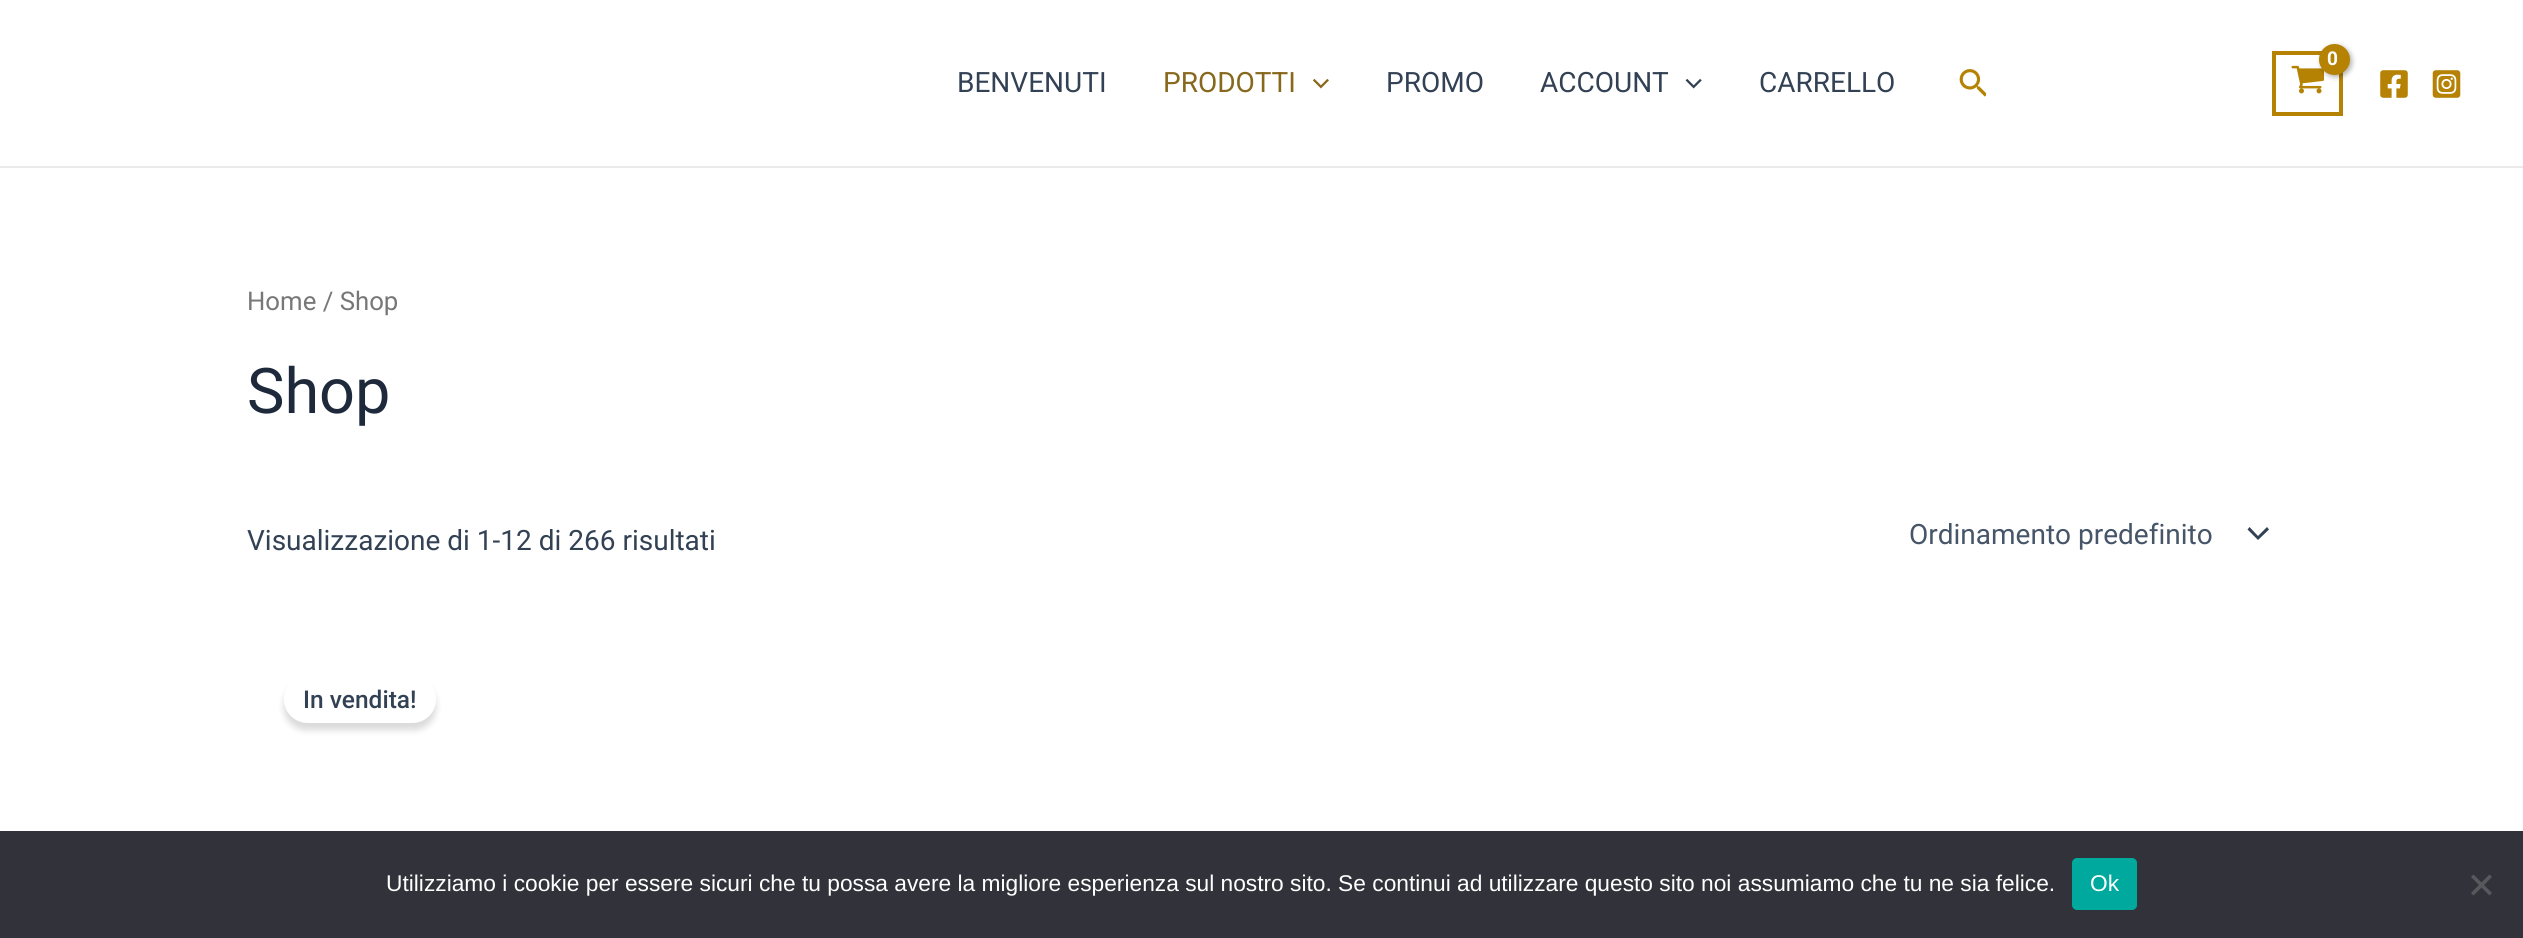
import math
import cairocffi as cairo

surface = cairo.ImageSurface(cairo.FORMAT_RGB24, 2523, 938)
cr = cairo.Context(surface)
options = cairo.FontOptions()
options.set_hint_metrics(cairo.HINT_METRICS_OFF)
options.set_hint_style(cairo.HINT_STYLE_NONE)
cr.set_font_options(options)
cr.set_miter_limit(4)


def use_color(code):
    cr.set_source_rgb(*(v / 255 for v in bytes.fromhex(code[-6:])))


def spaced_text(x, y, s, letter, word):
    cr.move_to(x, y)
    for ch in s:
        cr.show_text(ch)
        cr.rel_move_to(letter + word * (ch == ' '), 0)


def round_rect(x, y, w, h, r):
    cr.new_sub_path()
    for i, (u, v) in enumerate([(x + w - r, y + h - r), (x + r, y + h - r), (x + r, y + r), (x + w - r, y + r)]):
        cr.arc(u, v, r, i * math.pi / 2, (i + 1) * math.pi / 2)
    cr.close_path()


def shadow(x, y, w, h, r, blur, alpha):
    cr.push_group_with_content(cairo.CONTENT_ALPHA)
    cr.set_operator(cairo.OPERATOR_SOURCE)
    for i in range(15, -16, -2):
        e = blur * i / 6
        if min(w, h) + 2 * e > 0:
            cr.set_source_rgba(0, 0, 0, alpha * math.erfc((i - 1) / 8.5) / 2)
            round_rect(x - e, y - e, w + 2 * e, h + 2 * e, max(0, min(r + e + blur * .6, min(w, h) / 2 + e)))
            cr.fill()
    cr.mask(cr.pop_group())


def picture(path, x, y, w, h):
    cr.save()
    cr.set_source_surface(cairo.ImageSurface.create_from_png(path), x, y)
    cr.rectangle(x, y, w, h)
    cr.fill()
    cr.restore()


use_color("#ffffff")
cr.paint()
use_color("#eaeaea")
cr.rectangle(0, 166, 2523, 2)
cr.fill()
cr.rectangle(2274, 53, 67, 61)
use_color("#b58204")
cr.set_line_width(4)
cr.stroke()
picture("img1.png", 2291, 65, 34, 29)
use_color("#000000")
shadow(2321, 46, 31, 31, 15.5, 2.5, 0.3)
use_color("#b58204")
cr.arc(2334.5, 59.5, 15.5, 0, 2 * math.pi)
cr.fill()
cr.select_font_face("Roboto", cairo.FONT_SLANT_NORMAL, cairo.FONT_WEIGHT_BOLD)
cr.set_font_size(19)
use_color("#ffffff")
spaced_text(2327, 65, "0", -1, 0)
picture("img2.png", 2380, 70, 28, 28)
picture("img3.png", 2432, 70, 29, 28)
cr.select_font_face("Roboto")
cr.set_font_size(28)
use_color("#334155")
cr.move_to(957, 92)
cr.show_text("BENVENUTI")
use_color("#87681c")
cr.move_to(1163, 92)
cr.show_text("PRODOTTI")
picture("img4.png", 1313, 78, 16, 11)
use_color("#334155")
cr.move_to(1386, 92)
cr.show_text("PROMO")
cr.move_to(1540, 92)
cr.show_text("ACCOUNT")
picture("img5.png", 1685, 78, 17, 11)
cr.move_to(1759, 92)
cr.show_text("CARRELLO")
picture("img6.png", 1959, 69, 27, 28)
cr.set_font_size(25.75)
use_color("#777777")
cr.move_to(247, 310)
cr.show_text("Home / Shop")
cr.set_font_size(63)
use_color("#1e293b")
cr.move_to(247, 413)
cr.show_text("Shop")
cr.set_font_size(28)
use_color("#334155")
cr.move_to(247, 550)
cr.show_text("Visualizzazione di 1-12 di 266 risultati")
cr.new_path()
cr.move_to(2247.5, 529.5)
cr.line_to(2258, 540)
cr.line_to(2269, 529.5)
cr.line_to(2267, 527)
cr.line_to(2258, 536)
cr.line_to(2249.5, 527)
cr.close_path()
cr.fill()
use_color("#475569")
cr.move_to(1909, 544)
cr.show_text("Ordinamento predefinito")
use_color("#000000")
shadow(284, 683, 152, 47, 23.5, 3.5, 0.15)
use_color("#ffffff")
round_rect(284, 676, 152, 47, 23.5)
cr.fill()
cr.select_font_face("Roboto Medium")
cr.set_font_size(24.5)
use_color("#334155")
cr.move_to(303, 708)
cr.show_text("In vendita!")
use_color("#32323a")
cr.rectangle(0, 831, 2523, 107)
cr.fill()
cr.select_font_face("Liberation Sans")
cr.set_font_size(22.75)
use_color("#ffffff")
cr.move_to(386, 891)
cr.show_text("Utilizziamo i cookie per essere sicuri che tu possa avere la migliore esperienza sul nostro sito. Se continui ad utilizzare questo sito noi assumiamo che tu ne sia felice.")
use_color("#00a99d")
round_rect(2072, 858, 65, 52, 5)
cr.fill()
use_color("#ffffff")
cr.move_to(2090, 891)
cr.show_text("Ok")
use_color("#59595d")
cr.new_path()
cr.move_to(2489.5, 874.5)
cr.line_to(2492, 877)
cr.line_to(2473.5, 895.5)
cr.line_to(2471, 893)
cr.close_path()
cr.fill()
cr.new_path()
cr.move_to(2471, 877)
cr.line_to(2473.5, 874.5)
cr.line_to(2492, 893)
cr.line_to(2489.5, 895.5)
cr.close_path()
cr.fill()
surface.write_to_png("result.png")
